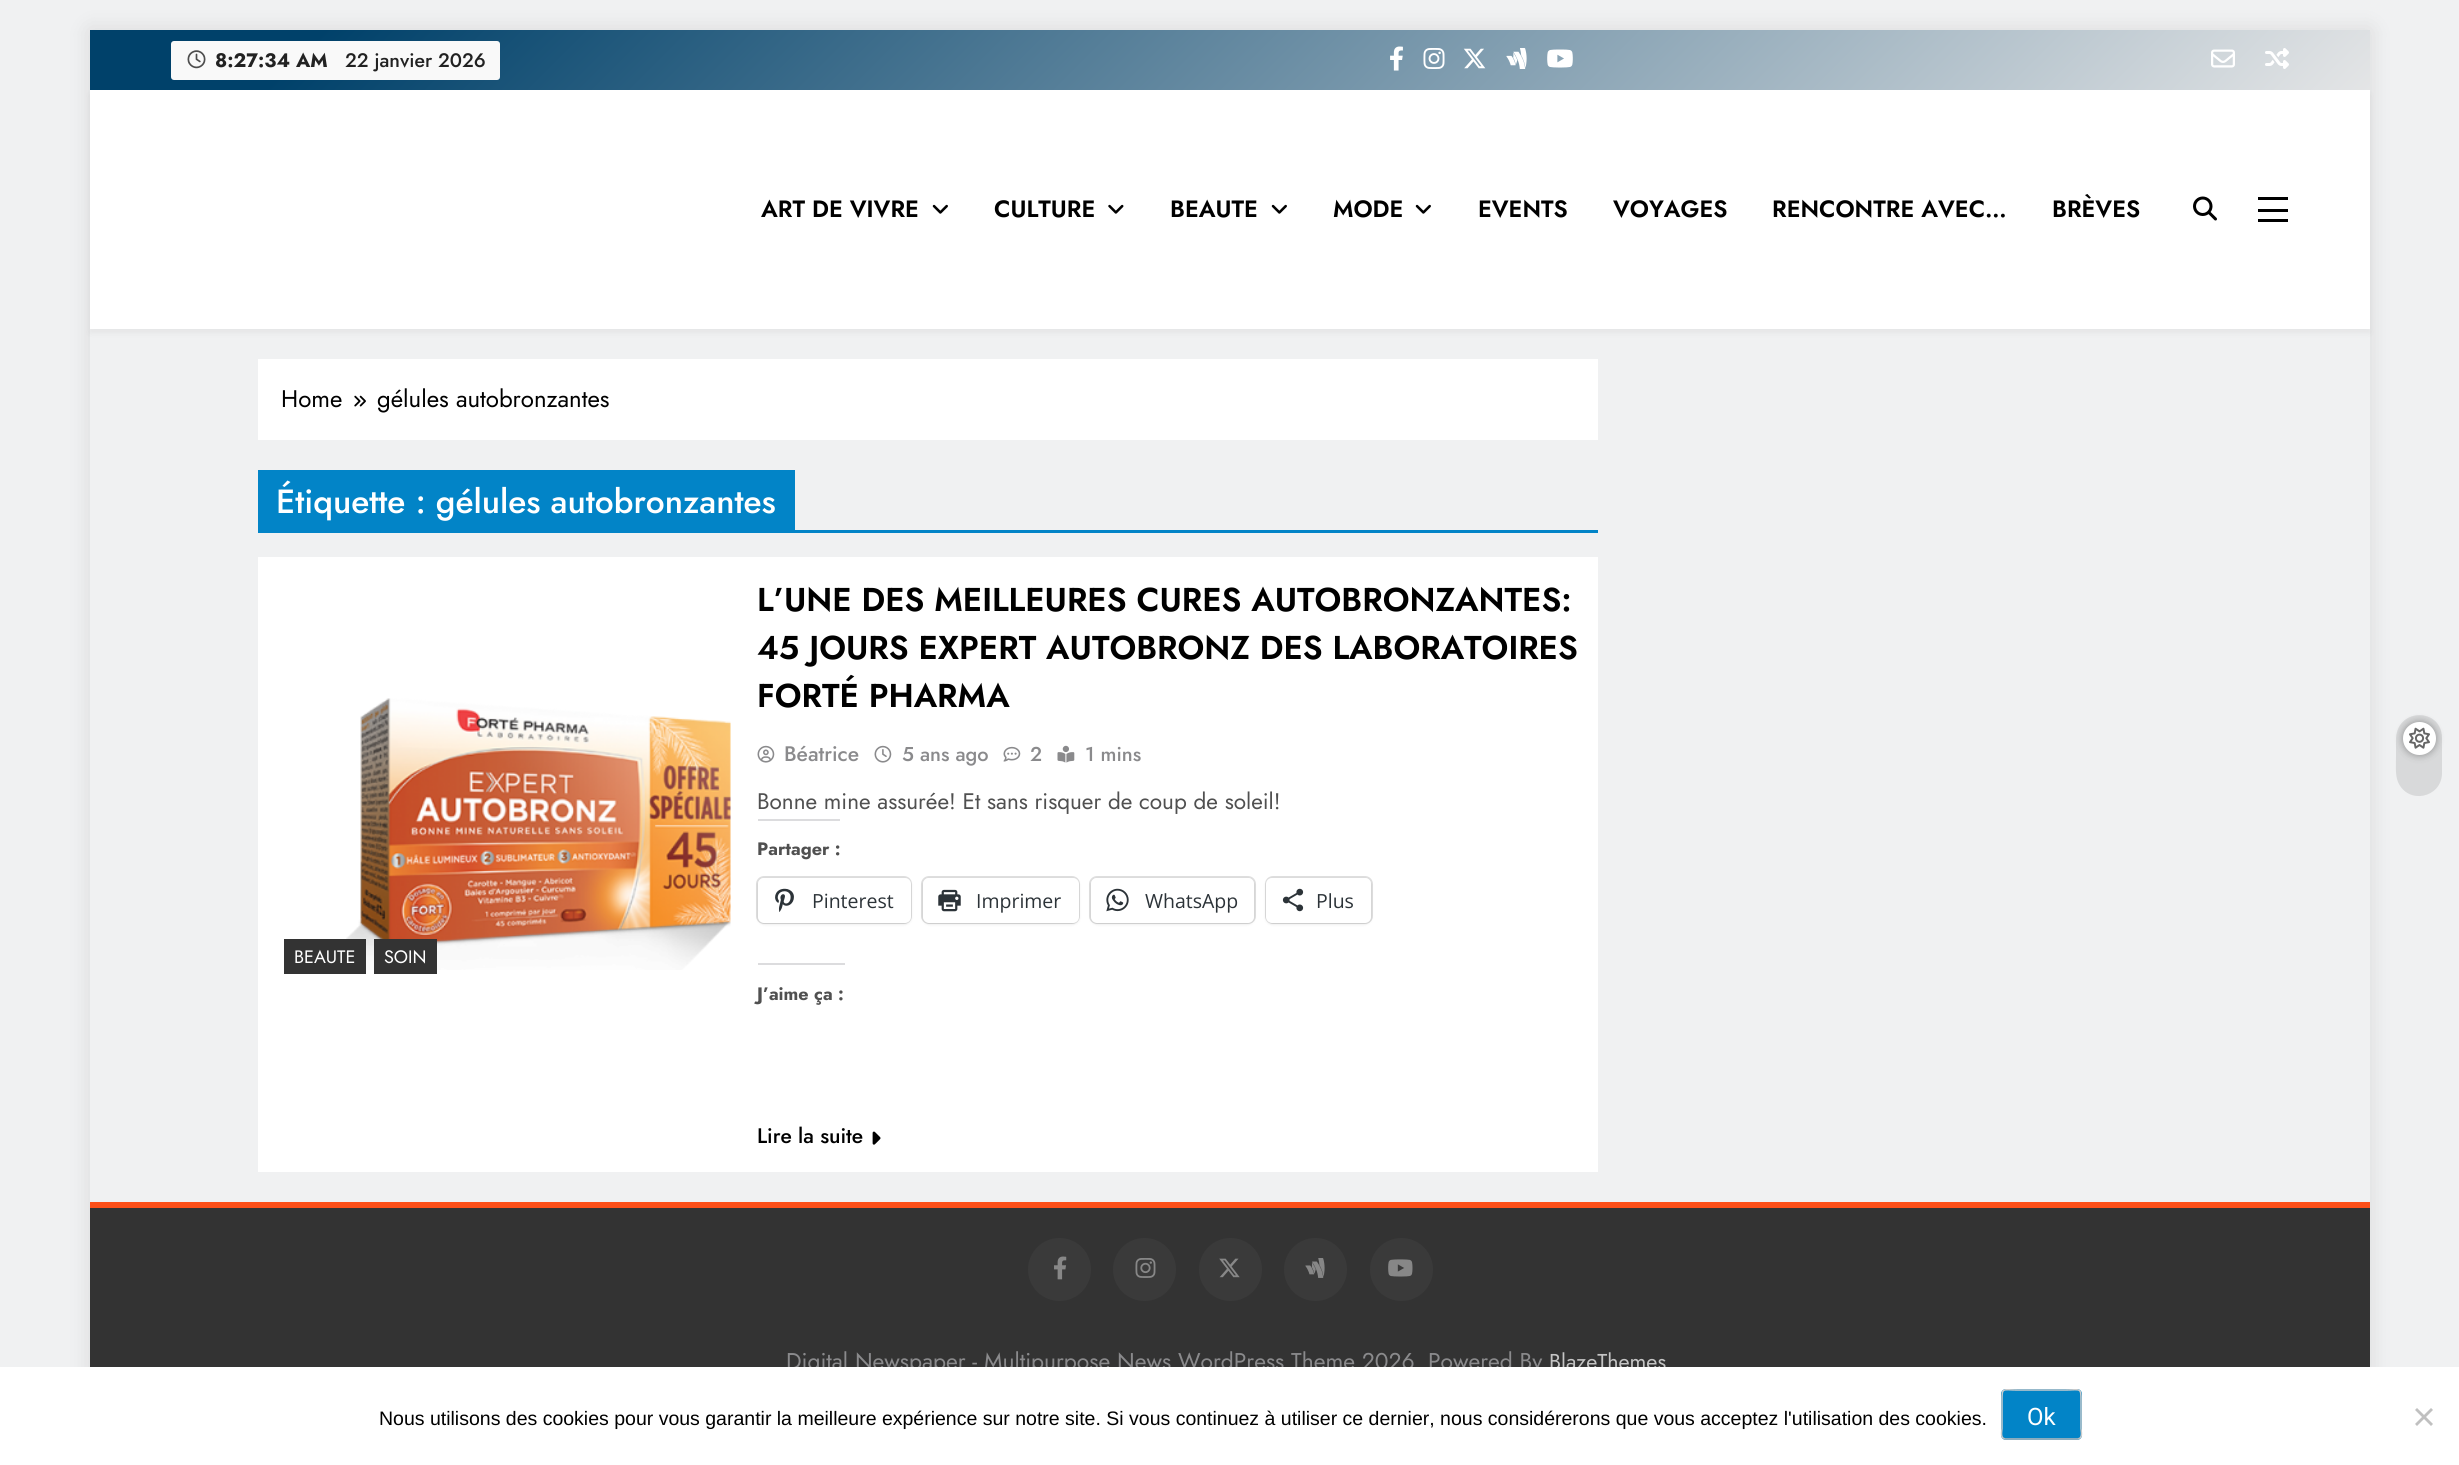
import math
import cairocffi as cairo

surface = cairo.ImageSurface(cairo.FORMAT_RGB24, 2459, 1465)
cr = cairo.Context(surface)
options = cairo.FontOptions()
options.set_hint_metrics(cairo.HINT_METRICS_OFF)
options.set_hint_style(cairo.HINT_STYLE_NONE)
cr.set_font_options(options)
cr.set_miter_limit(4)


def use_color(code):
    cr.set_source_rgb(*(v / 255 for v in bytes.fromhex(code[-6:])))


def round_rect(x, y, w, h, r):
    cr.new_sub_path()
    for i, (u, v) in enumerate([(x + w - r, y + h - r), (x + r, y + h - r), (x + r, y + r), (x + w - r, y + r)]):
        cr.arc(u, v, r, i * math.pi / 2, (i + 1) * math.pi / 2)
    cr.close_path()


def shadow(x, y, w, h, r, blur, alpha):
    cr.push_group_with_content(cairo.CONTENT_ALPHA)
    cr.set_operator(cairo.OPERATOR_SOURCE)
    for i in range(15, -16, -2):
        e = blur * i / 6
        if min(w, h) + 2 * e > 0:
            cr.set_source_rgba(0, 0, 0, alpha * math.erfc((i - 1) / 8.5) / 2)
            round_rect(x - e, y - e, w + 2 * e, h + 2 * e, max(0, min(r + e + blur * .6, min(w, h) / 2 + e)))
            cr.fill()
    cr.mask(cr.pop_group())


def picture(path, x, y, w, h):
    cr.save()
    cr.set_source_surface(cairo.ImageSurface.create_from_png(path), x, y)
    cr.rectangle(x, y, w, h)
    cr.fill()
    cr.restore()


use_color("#f0f1f2")
cr.paint()
cr.save()
cr.set_fill_rule(cairo.FILL_RULE_EVEN_ODD)
cr.new_path()
cr.move_to(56, 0)
cr.line_to(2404, 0)
cr.line_to(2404, 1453)
cr.line_to(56, 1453)
cr.close_path()
cr.move_to(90, 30)
cr.line_to(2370, 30)
cr.line_to(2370, 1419)
cr.line_to(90, 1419)
cr.close_path()
cr.clip()
use_color("#000000")
shadow(90, 30, 2280, 1389, 0, 11, 0.1)
cr.restore()
gradient = cairo.LinearGradient(645, -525, 1815, 645)
gradient.add_color_stop_rgba(0.1, 0, 0.255, 0.416, 1)
gradient.add_color_stop_rgba(1, 0.894, 0.898, 0.902, 1)
cr.set_source(gradient)
cr.rectangle(90, 30, 2280, 60)
cr.fill()
use_color("#f9f9f9")
round_rect(171, 41, 329, 39, 3)
cr.fill()
picture("img1.png", 187, 50, 19, 19)
cr.select_font_face("Jost", cairo.FONT_SLANT_NORMAL, cairo.FONT_WEIGHT_BOLD)
cr.set_font_size(19.5)
use_color("#222222")
cr.move_to(215, 67)
cr.show_text("8:27:34 AM")
cr.select_font_face("Jost Medium")
cr.move_to(345, 67)
cr.show_text("22 janvier 2026")
picture("img2.png", 1390, 46, 13, 25)
picture("img3.png", 1423, 48, 22, 21)
picture("img4.png", 1463, 48, 23, 21)
picture("img5.png", 1506, 48, 21, 21)
picture("img6.png", 1547, 49, 26, 19)
picture("img7.png", 2211, 49, 24, 19)
picture("img8.png", 2265, 48, 24, 21)
use_color("#000000")
shadow(90, 95, 2280, 238, 0, 3, 0.05)
use_color("#ffffff")
cr.rectangle(90, 90, 2280, 239)
cr.fill()
cr.select_font_face("Jost SemiBold")
cr.set_font_size(23.6)
use_color("#000000")
cr.move_to(761, 217)
cr.show_text("ART DE VIVRE")
picture("img9.png", 932, 204, 16, 10)
cr.move_to(994, 217)
cr.show_text("CULTURE")
picture("img10.png", 1108, 204, 16, 10)
cr.move_to(1170, 217)
cr.show_text("BEAUTE")
picture("img9.png", 1271, 204, 16, 10)
cr.move_to(1333, 217)
cr.show_text("MODE")
picture("img9.png", 1415, 204, 16, 10)
cr.move_to(1478, 217)
cr.show_text("EVENTS")
cr.move_to(1613, 217)
cr.show_text("VOYAGES")
cr.move_to(1772, 217)
cr.show_text("RENCONTRE AVEC…")
cr.move_to(2052, 217)
cr.show_text("BRÈVES")
picture("img11.png", 2193, 196, 24, 25)
cr.rectangle(2258, 197, 30, 3)
cr.fill()
cr.rectangle(2258, 209, 30, 3)
cr.fill()
cr.rectangle(2258, 219, 30, 3)
cr.fill()
use_color("#d8d9da")
cr.new_path()
cr.move_to(2442, 738)
cr.line_to(2442, 774)
cr.curve_to(2441, 798, 2408, 805, 2398, 782)
cr.curve_to(2395, 775, 2396, 764, 2396, 756)
cr.line_to(2396, 738)
cr.curve_to(2398, 707, 2442, 708, 2442, 738)
cr.close_path()
cr.fill()
use_color("#000000")
shadow(2403, 722, 33, 33, 16.5, 4, 0.35)
use_color("#ffffff")
cr.arc(2419.5, 738.5, 16.5, 0, 2 * math.pi)
cr.fill()
picture("img12.png", 2409, 727, 21, 22)
cr.rectangle(258, 359, 1340, 81)
cr.fill()
cr.select_font_face("Jost")
cr.set_font_size(24)
use_color("#000000")
cr.move_to(281, 407)
cr.show_text("Home")
picture("img13.png", 354, 395, 12, 12)
cr.move_to(377, 407)
cr.show_text("gélules autobronzantes")
use_color("#0284c7")
cr.rectangle(795, 530, 803, 3)
cr.fill()
cr.rectangle(258, 470, 537, 63)
cr.fill()
cr.select_font_face("Jost Medium")
cr.set_font_size(33.5)
use_color("#ffffff")
cr.move_to(276, 513)
cr.show_text("Étiquette : gélules autobronzantes")
cr.rectangle(258, 557, 1340, 615)
cr.fill()
picture("img14.png", 346, 698, 385, 272)
use_color("#333333")
cr.rectangle(284, 939, 82, 35)
cr.fill()
cr.select_font_face("Jost")
cr.set_font_size(18)
use_color("#ffffff")
cr.move_to(294, 963)
cr.show_text("BEAUTE")
use_color("#333333")
cr.rectangle(374, 939, 63, 35)
cr.fill()
use_color("#ffffff")
cr.move_to(384, 963)
cr.show_text("SOIN")
cr.select_font_face("Jost SemiBold")
cr.set_font_size(33)
use_color("#000000")
cr.move_to(757, 611)
cr.show_text("L’UNE DES MEILLEURES CURES AUTOBRONZANTES:")
cr.move_to(757, 659)
cr.show_text("45 JOURS EXPERT AUTOBRONZ DES LABORATOIRES")
cr.move_to(757, 707)
cr.show_text("FORTÉ PHARMA")
picture("img15.png", 757, 745, 18, 18)
cr.select_font_face("Jost Medium")
cr.set_font_size(21)
use_color("#8a8a8c")
cr.move_to(784, 761)
cr.show_text("Béatrice")
picture("img16.png", 874, 745, 18, 18)
cr.set_font_size(20)
cr.move_to(902, 761)
cr.show_text("5 ans ago")
picture("img17.png", 1003, 746, 18, 16)
cr.move_to(1030, 761)
cr.show_text("2")
picture("img18.png", 1057, 745, 18, 18)
cr.move_to(1085, 761)
cr.show_text("1 mins")
cr.select_font_face("Jost")
cr.set_font_size(22.5)
use_color("#505050")
cr.move_to(757, 809)
cr.show_text("Bonne mine assurée! Et sans risquer de coup de soleil!")
use_color("#dcdcde")
cr.rectangle(758, 819, 82, 2)
cr.fill()
cr.select_font_face("Jost", cairo.FONT_SLANT_NORMAL, cairo.FONT_WEIGHT_BOLD)
cr.set_font_size(18)
use_color("#505050")
cr.move_to(757, 855)
cr.show_text("Partager :")
round_rect(757, 877, 154, 46, 7)
use_color("#e0e0e0")
cr.stroke()
use_color("#000000")
shadow(758, 879, 153, 45, 6, 1.5, 0.12)
use_color("#ffffff")
round_rect(758, 878, 153, 45, 6)
cr.fill()
picture("img19.png", 775, 888, 19, 24)
cr.select_font_face("Open Sans")
cr.set_font_size(19.5)
use_color("#2c3338")
cr.move_to(812, 908)
cr.show_text("Pinterest")
round_rect(922, 877, 157, 46, 7)
use_color("#e0e0e0")
cr.stroke()
use_color("#000000")
shadow(923, 879, 156, 45, 6, 1.5, 0.12)
use_color("#ffffff")
round_rect(923, 878, 156, 45, 6)
cr.fill()
picture("img20.png", 938, 889, 23, 23)
use_color("#2c3338")
cr.move_to(976, 908)
cr.show_text("Imprimer")
round_rect(1090, 877, 165, 46, 7)
use_color("#e0e0e0")
cr.stroke()
use_color("#000000")
shadow(1091, 879, 163, 45, 6, 1.5, 0.12)
use_color("#ffffff")
round_rect(1091, 878, 163, 45, 6)
cr.fill()
picture("img21.png", 1106, 888, 23, 24)
use_color("#2c3338")
cr.move_to(1145, 908)
cr.show_text("WhatsApp")
round_rect(1266, 877, 106, 46, 7)
use_color("#e0e0e0")
cr.stroke()
use_color("#000000")
shadow(1266, 879, 105, 45, 6, 1.5, 0.12)
use_color("#ffffff")
round_rect(1266, 878, 105, 45, 6)
cr.fill()
picture("img22.png", 1282, 888, 22, 24)
use_color("#2c3338")
cr.move_to(1316, 908)
cr.show_text("Plus")
use_color("#dcdcde")
cr.rectangle(758, 963, 87, 2)
cr.fill()
cr.select_font_face("Jost", cairo.FONT_SLANT_NORMAL, cairo.FONT_WEIGHT_BOLD)
cr.set_font_size(18)
use_color("#505050")
cr.move_to(757, 1000)
cr.show_text("J’aime ça :")
cr.select_font_face("Jost Medium")
cr.set_font_size(21)
use_color("#000000")
cr.move_to(757, 1143)
cr.show_text("Lire la suite")
picture("img23.png", 872, 1131, 9, 14)
use_color("#fd4f18")
cr.rectangle(90, 1202, 2280, 6)
cr.fill()
use_color("#333333")
cr.rectangle(90, 1208, 2280, 159)
cr.fill()
use_color("#3a3a3a")
cr.arc(1059.5, 1269.5, 31.5, 0, 2 * math.pi)
cr.fill()
picture("img24.png", 1054, 1256, 13, 24)
cr.arc(1144.5, 1269.5, 31.5, 0, 2 * math.pi)
cr.fill()
picture("img25.png", 1135, 1258, 21, 20)
cr.arc(1230.5, 1269.5, 31.5, 0, 2 * math.pi)
cr.fill()
picture("img26.png", 1219, 1258, 21, 20)
cr.arc(1315.5, 1269.5, 31.5, 0, 2 * math.pi)
cr.fill()
picture("img27.png", 1305, 1258, 20, 20)
cr.arc(1401.5, 1269.5, 31.5, 0, 2 * math.pi)
cr.fill()
picture("img28.png", 1388, 1259, 25, 18)
cr.select_font_face("Jost")
cr.set_font_size(22.8)
use_color("#8a8a8c")
cr.move_to(786, 1369)
cr.show_text("Digital Newspaper - Multipurpose News WordPress Theme 2026")
cr.move_to(1428, 1369)
cr.show_text("Powered By")
cr.set_font_size(21.5)
use_color("#c5c5c5")
cr.move_to(1549, 1369)
cr.show_text("BlazeThemes")
use_color("#ffffff")
cr.rectangle(0, 1367, 2459, 98)
cr.fill()
cr.select_font_face("Liberation Sans")
cr.set_font_size(19.5)
use_color("#000000")
cr.move_to(379, 1425)
cr.show_text("Nous utilisons des cookies pour vous garantir la meilleure expérience sur notre site. Si vous continuez à utiliser ce dernier, nous considérerons que vous acceptez l'utilisation des cookies.")
use_color("#0284c7")
round_rect(2001, 1389, 81, 51, 5)
cr.fill()
cr.new_path()
cr.move_to(2080, 1438)
cr.line_to(2078, 1439)
cr.line_to(2005, 1439)
cr.line_to(2003, 1438)
use_color("#bbbbbb")
cr.set_line_width(1.5)
cr.stroke()
cr.new_path()
cr.move_to(2003, 1438)
cr.curve_to(2000.5, 1436, 2002, 1430, 2002, 1428.5)
cr.line_to(2002, 1400.5)
cr.curve_to(2002, 1387, 2002.5, 1390, 2017.5, 1390)
cr.line_to(2065.5, 1390)
cr.curve_to(2080.5, 1390, 2081, 1387, 2081, 1400.5)
cr.line_to(2081, 1428.5)
cr.curve_to(2081, 1430, 2082.5, 1436, 2080, 1438)
use_color("#cccccc")
cr.stroke()
cr.select_font_face("Roboto")
cr.set_font_size(24)
use_color("#ffffff")
cr.move_to(2027, 1425)
cr.show_text("Ok")
use_color("#c0c0c0")
cr.new_path()
cr.move_to(2431, 1408)
cr.line_to(2433, 1410)
cr.line_to(2417, 1426)
cr.line_to(2415, 1424)
cr.close_path()
cr.fill()
cr.new_path()
cr.move_to(2415, 1410)
cr.line_to(2417, 1408)
cr.line_to(2433, 1424)
cr.line_to(2431, 1426)
cr.close_path()
cr.fill()
surface.write_to_png("result.png")
